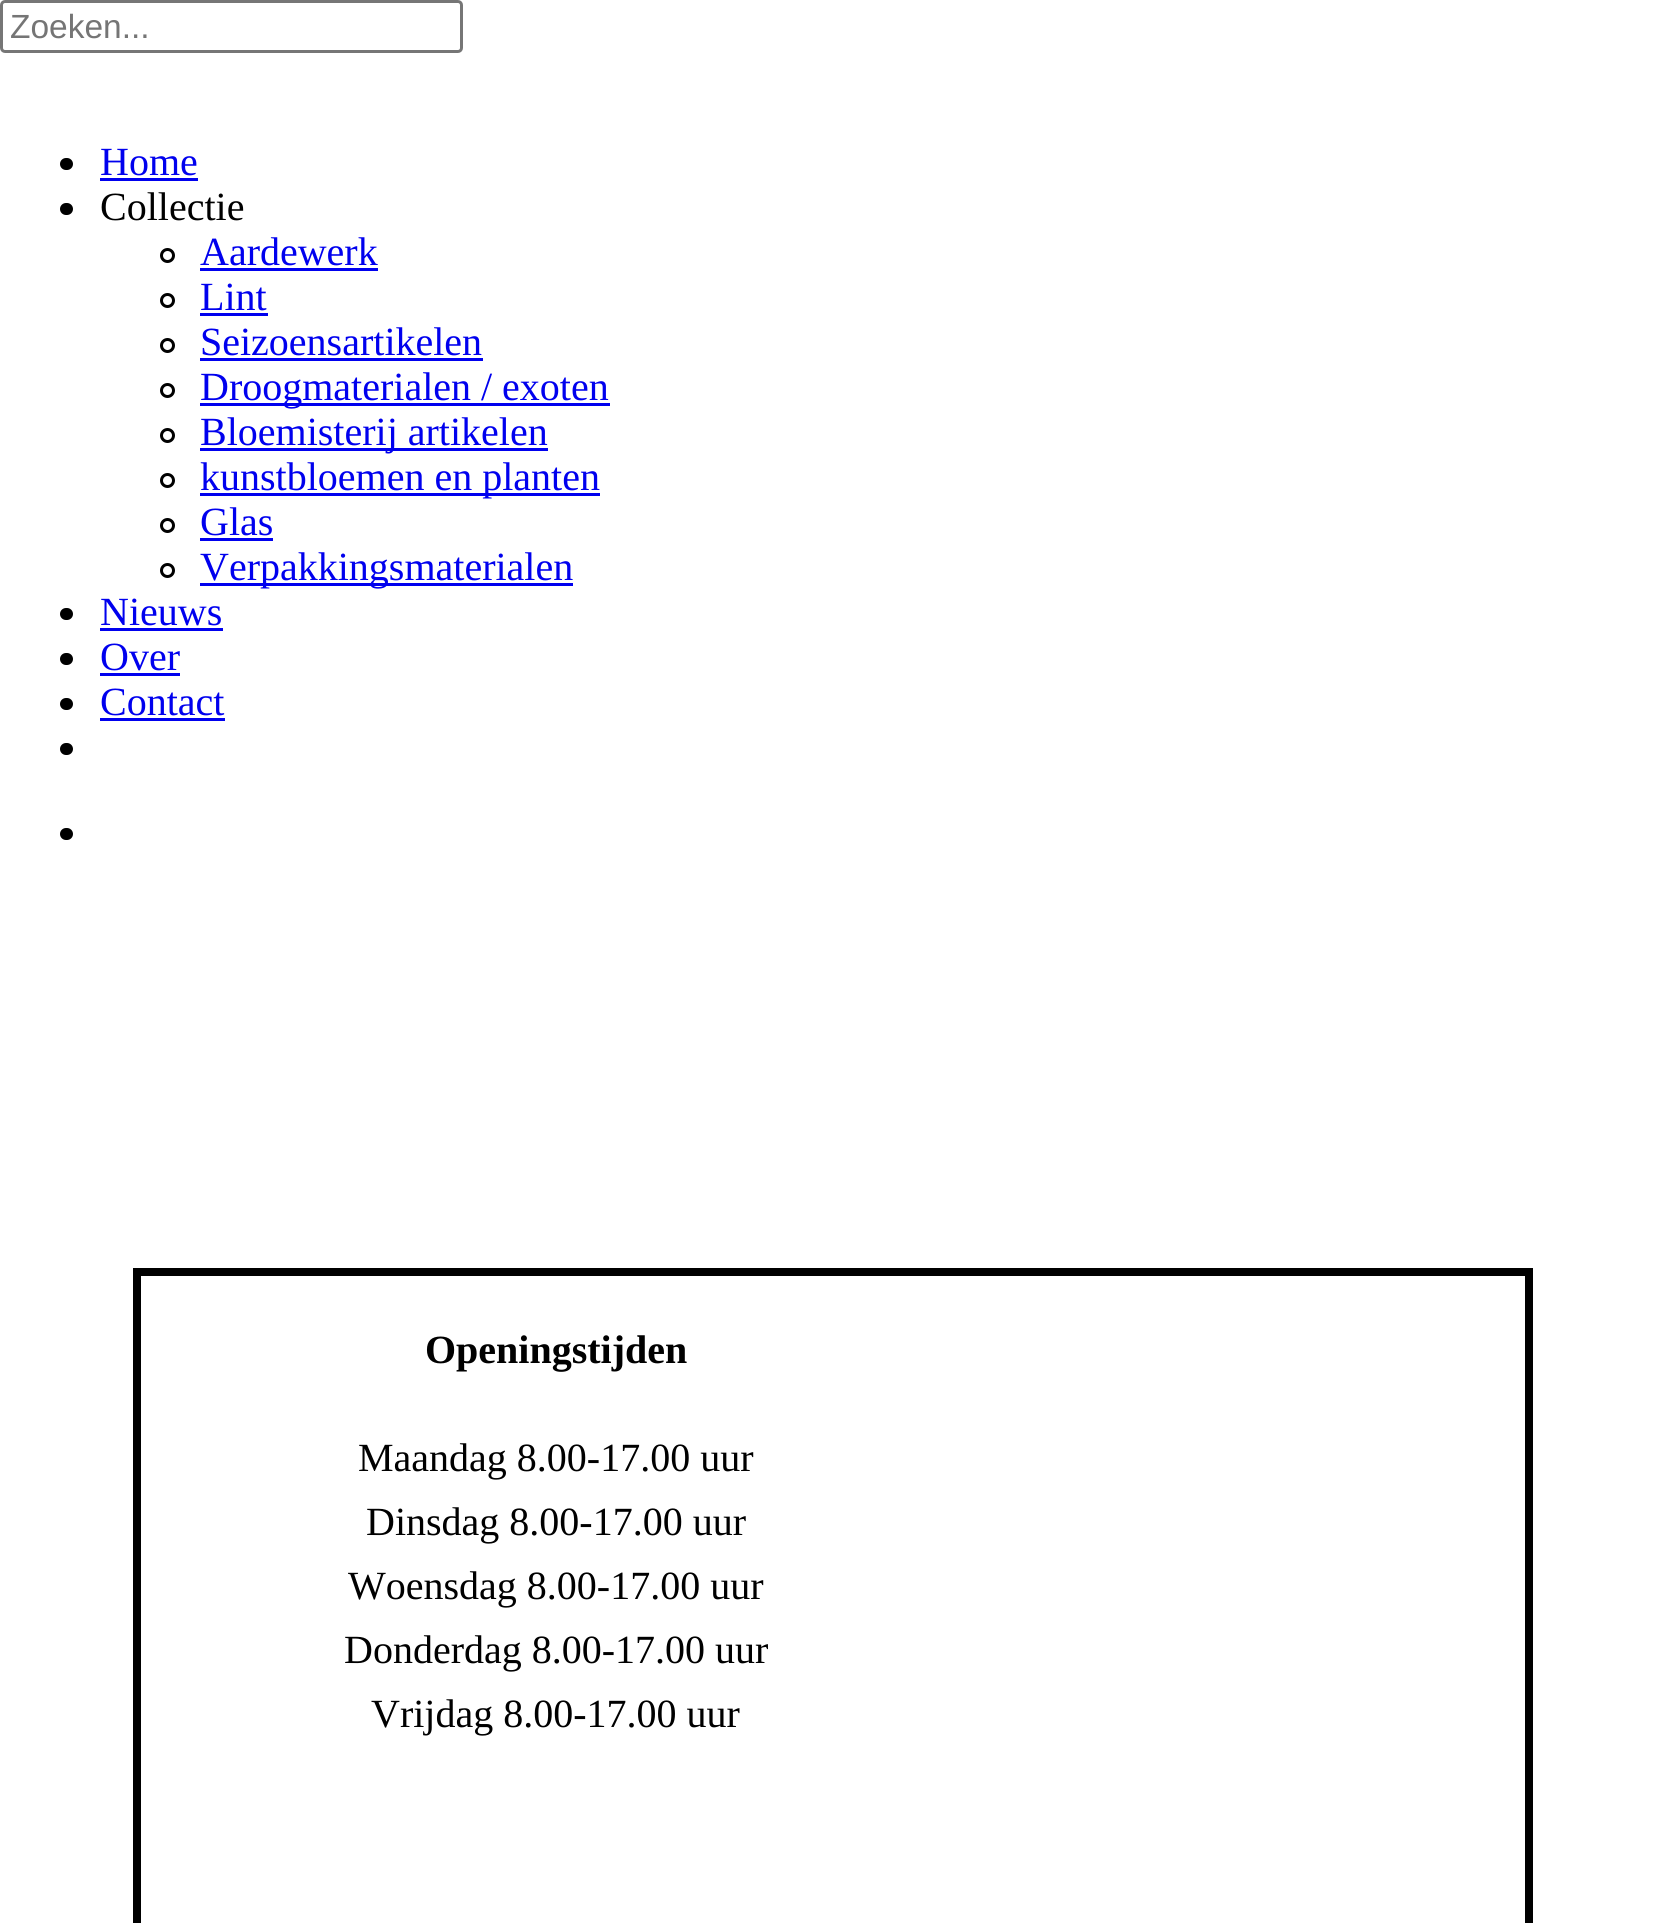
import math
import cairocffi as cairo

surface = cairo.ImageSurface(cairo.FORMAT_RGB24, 1663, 1923)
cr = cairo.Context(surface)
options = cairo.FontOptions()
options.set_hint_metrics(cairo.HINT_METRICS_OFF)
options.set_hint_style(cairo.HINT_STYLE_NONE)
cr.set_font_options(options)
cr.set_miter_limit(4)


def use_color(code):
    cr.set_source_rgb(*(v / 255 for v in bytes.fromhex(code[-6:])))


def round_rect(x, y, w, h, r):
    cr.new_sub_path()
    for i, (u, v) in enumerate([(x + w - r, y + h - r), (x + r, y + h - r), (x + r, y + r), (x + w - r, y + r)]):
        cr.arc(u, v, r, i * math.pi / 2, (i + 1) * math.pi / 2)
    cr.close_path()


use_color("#ffffff")
cr.paint()
round_rect(1.5, 1.5, 460, 50, 3.5)
use_color("#767676")
cr.set_line_width(3)
cr.stroke()
cr.select_font_face("Liberation Sans")
cr.set_font_size(33.5)
use_color("#757575")
cr.move_to(10, 38)
cr.show_text("Zoeken...")
use_color("#000000")
round_rect(60, 158, 13, 12, 6)
cr.fill()
cr.select_font_face("Liberation Serif")
cr.set_font_size(40)
use_color("#0000ee")
cr.move_to(100, 175)
cr.show_text("Home")
cr.rectangle(100, 178, 98, 3)
cr.fill()
use_color("#000000")
round_rect(60, 203, 13, 12, 6)
cr.fill()
cr.move_to(100, 220)
cr.show_text("Collectie")
cr.new_path()
cr.arc(167.5, 255.5, 6, 0, 2 * math.pi)
cr.stroke()
use_color("#0000ee")
cr.move_to(200, 265)
cr.show_text("Aardewerk")
cr.rectangle(200, 268, 178, 3)
cr.fill()
cr.arc(167.5, 300.5, 6, 0, 2 * math.pi)
use_color("#000000")
cr.stroke()
use_color("#0000ee")
cr.move_to(200, 310)
cr.show_text("Lint")
cr.rectangle(200, 313, 68, 3)
cr.fill()
cr.arc(167.5, 345.5, 6, 0, 2 * math.pi)
use_color("#000000")
cr.stroke()
use_color("#0000ee")
cr.move_to(200, 355)
cr.show_text("Seizoensartikelen")
cr.rectangle(200, 358, 283, 3)
cr.fill()
cr.arc(167.5, 390.5, 6, 0, 2 * math.pi)
use_color("#000000")
cr.stroke()
use_color("#0000ee")
cr.rectangle(200, 403, 410, 3)
cr.fill()
cr.move_to(200, 400)
cr.show_text("Droogmaterialen / exoten")
cr.new_path()
cr.arc(167.5, 435.5, 6, 0, 2 * math.pi)
use_color("#000000")
cr.stroke()
use_color("#0000ee")
cr.rectangle(200, 448, 348, 3)
cr.fill()
cr.move_to(200, 445)
cr.show_text("Bloemisterij artikelen")
cr.new_path()
cr.arc(167.5, 480.5, 6, 0, 2 * math.pi)
use_color("#000000")
cr.stroke()
use_color("#0000ee")
cr.rectangle(200, 493, 400, 3)
cr.fill()
cr.move_to(200, 490)
cr.show_text("kunstbloemen en planten")
cr.new_path()
cr.arc(167.5, 525.5, 6, 0, 2 * math.pi)
use_color("#000000")
cr.stroke()
use_color("#0000ee")
cr.move_to(200, 535)
cr.show_text("Glas")
cr.rectangle(200, 538, 73, 3)
cr.fill()
cr.arc(167.5, 570.5, 6, 0, 2 * math.pi)
use_color("#000000")
cr.stroke()
use_color("#0000ee")
cr.rectangle(200, 583, 373, 3)
cr.fill()
cr.move_to(200, 580)
cr.show_text("Verpakkingsmaterialen")
use_color("#000000")
round_rect(60, 608, 13, 12, 6)
cr.fill()
use_color("#0000ee")
cr.move_to(100, 625)
cr.show_text("Nieuws")
cr.rectangle(100, 628, 123, 3)
cr.fill()
use_color("#000000")
round_rect(60, 653, 13, 12, 6)
cr.fill()
use_color("#0000ee")
cr.move_to(100, 670)
cr.show_text("Over")
cr.rectangle(100, 673, 80, 3)
cr.fill()
use_color("#000000")
round_rect(60, 698, 13, 12, 6)
cr.fill()
use_color("#0000ee")
cr.move_to(100, 715)
cr.show_text("Contact")
cr.rectangle(100, 718, 125, 3)
cr.fill()
use_color("#000000")
round_rect(60, 743, 13, 12, 6)
cr.fill()
round_rect(60, 828, 13, 12, 6)
cr.fill()
cr.rectangle(137, 1272, 1392, 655)
cr.set_line_width(8)
cr.stroke()
cr.select_font_face("Liberation Serif", cairo.FONT_SLANT_NORMAL, cairo.FONT_WEIGHT_BOLD)
cr.move_to(425, 1363)
cr.show_text("Openingstijden")
cr.select_font_face("Liberation Serif")
cr.move_to(358, 1471)
cr.show_text("Maandag 8.00-17.00 uur")
cr.move_to(366, 1535)
cr.show_text("Dinsdag 8.00-17.00 uur")
cr.move_to(348, 1599)
cr.show_text("Woensdag 8.00-17.00 uur")
cr.move_to(344, 1663)
cr.show_text("Donderdag 8.00-17.00 uur")
cr.move_to(371, 1727)
cr.show_text("Vrijdag 8.00-17.00 uur")
surface.write_to_png("result.png")
